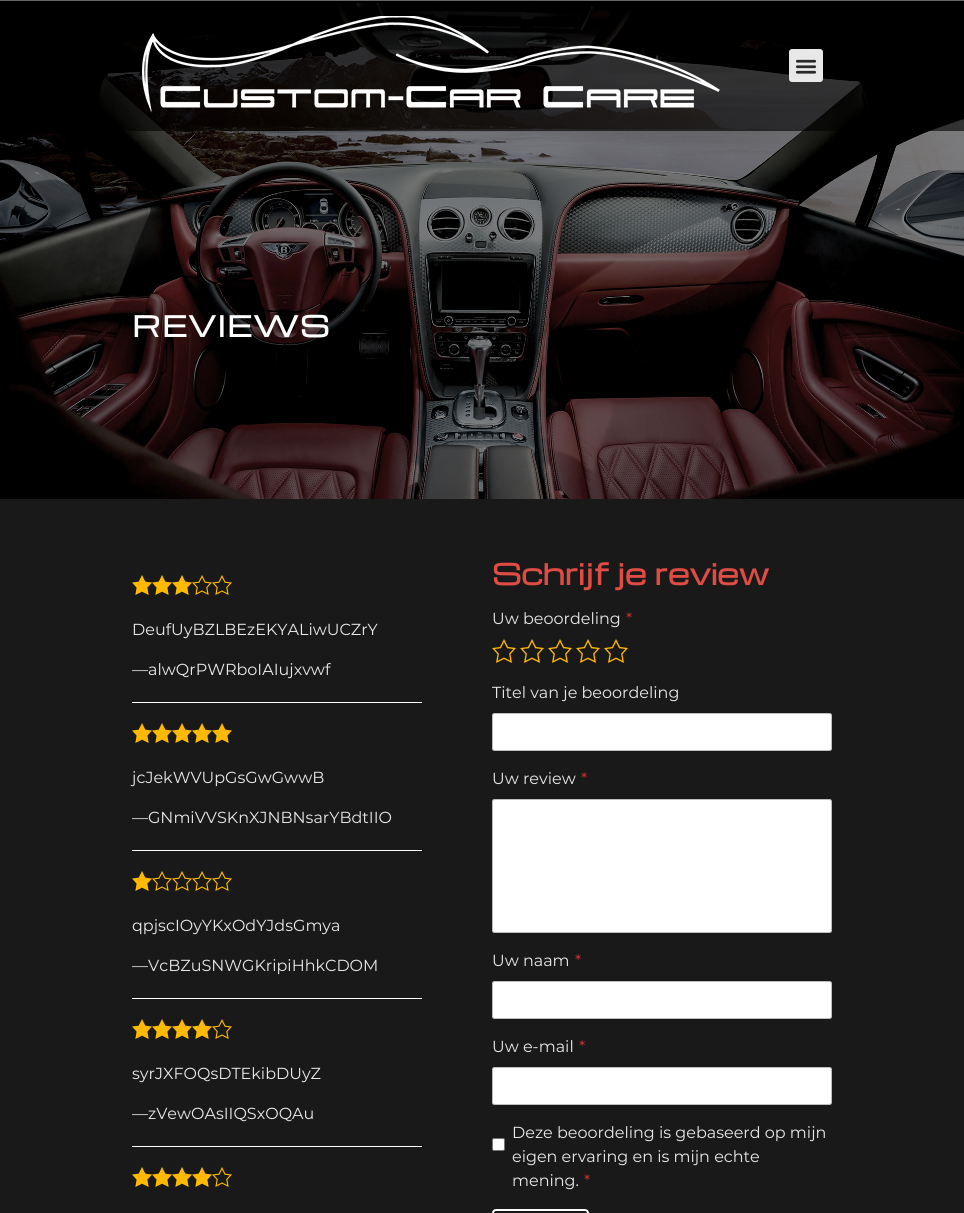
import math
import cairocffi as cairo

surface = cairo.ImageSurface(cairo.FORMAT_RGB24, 964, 1213)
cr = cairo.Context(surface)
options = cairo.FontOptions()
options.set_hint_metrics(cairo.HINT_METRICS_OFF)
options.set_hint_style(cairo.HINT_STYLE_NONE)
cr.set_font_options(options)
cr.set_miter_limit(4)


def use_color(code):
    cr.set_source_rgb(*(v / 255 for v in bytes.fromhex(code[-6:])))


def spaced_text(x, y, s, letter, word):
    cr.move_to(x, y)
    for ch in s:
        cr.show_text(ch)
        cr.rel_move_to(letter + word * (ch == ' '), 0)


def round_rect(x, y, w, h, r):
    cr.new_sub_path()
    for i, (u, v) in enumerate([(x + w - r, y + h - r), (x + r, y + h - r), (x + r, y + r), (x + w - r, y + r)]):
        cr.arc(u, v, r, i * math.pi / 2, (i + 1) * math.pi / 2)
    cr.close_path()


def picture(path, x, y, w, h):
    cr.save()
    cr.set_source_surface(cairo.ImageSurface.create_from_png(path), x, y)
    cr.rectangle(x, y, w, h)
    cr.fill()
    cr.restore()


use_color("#ffffff")
cr.paint()
picture("img3.png", 0, 1, 964, 498)
cr.set_source_rgba(0, 0, 0, 0.6)
cr.rectangle(0, 0, 964, 131)
cr.fill()
picture("img1.png", 142, 16, 578, 97)
use_color("#e8e8e8")
round_rect(789, 49, 34, 33, 3)
cr.fill()
picture("img2.png", 795, 59, 22, 15)
cr.select_font_face("Michroma", cairo.FONT_SLANT_NORMAL, cairo.FONT_WEIGHT_BOLD)
cr.set_font_size(28)
use_color("#ffffff")
spaced_text(132, 337, "REVIEWS", 1.5, 0)
use_color("#191919")
cr.rectangle(0, 499, 964, 714)
cr.fill()
use_color("#ffffff")
cr.rectangle(132, 702, 290, 1)
cr.fill()
picture("img4.png", 132, 575, 20, 20)
picture("img4.png", 152, 575, 20, 20)
picture("img4.png", 172, 575, 20, 20)
picture("img5.png", 192, 575, 20, 20)
picture("img5.png", 212, 575, 20, 20)
cr.select_font_face("Montserrat")
cr.set_font_size(16)
use_color("#e8e8e8")
cr.move_to(132, 635)
cr.show_text("DeufUyBZLBEzEKYALiwUCZrY")
cr.move_to(132, 675)
cr.show_text("—alwQrPWRboIAIujxvwf")
use_color("#ffffff")
cr.rectangle(132, 850, 290, 1)
cr.fill()
picture("img4.png", 132, 723, 20, 20)
picture("img4.png", 152, 723, 20, 20)
picture("img4.png", 172, 723, 20, 20)
picture("img4.png", 192, 723, 20, 20)
picture("img4.png", 212, 723, 20, 20)
use_color("#e8e8e8")
cr.move_to(132, 783)
cr.show_text("jcJekWVUpGsGwGwwB")
cr.move_to(132, 823)
cr.show_text("—GNmiVVSKnXJNBNsarYBdtIIO")
use_color("#ffffff")
cr.rectangle(132, 998, 290, 1)
cr.fill()
picture("img4.png", 132, 871, 20, 20)
picture("img5.png", 152, 871, 20, 20)
picture("img5.png", 172, 871, 20, 20)
picture("img5.png", 192, 871, 20, 20)
picture("img5.png", 212, 871, 20, 20)
use_color("#e8e8e8")
cr.move_to(132, 931)
cr.show_text("qpjscIOyYKxOdYJdsGmya")
cr.move_to(132, 971)
cr.show_text("—VcBZuSNWGKripiHhkCDOM")
use_color("#ffffff")
cr.rectangle(132, 1146, 290, 1)
cr.fill()
picture("img4.png", 132, 1019, 20, 20)
picture("img4.png", 152, 1019, 20, 20)
picture("img4.png", 172, 1019, 20, 20)
picture("img4.png", 192, 1019, 20, 20)
picture("img5.png", 212, 1019, 20, 20)
use_color("#e8e8e8")
cr.move_to(132, 1079)
cr.show_text("syrJXFOQsDTEkibDUyZ")
cr.move_to(132, 1119)
cr.show_text("—zVewOAsIIQSxOQAu")
picture("img4.png", 132, 1167, 20, 20)
picture("img4.png", 152, 1167, 20, 20)
picture("img4.png", 172, 1167, 20, 20)
picture("img4.png", 192, 1167, 20, 20)
picture("img5.png", 212, 1167, 20, 20)
cr.select_font_face("Michroma", cairo.FONT_SLANT_NORMAL, cairo.FONT_WEIGHT_BOLD)
cr.set_font_size(28)
use_color("#e04c44")
cr.move_to(492, 585)
cr.show_text("Schrijf je review")
cr.select_font_face("Montserrat")
cr.set_font_size(16)
use_color("#e8e8e8")
cr.move_to(492, 624)
cr.show_text("Uw beoordeling")
use_color("#d32f2f")
cr.move_to(626, 624)
cr.show_text("*")
picture("img6.png", 492, 639, 24, 24)
picture("img6.png", 520, 639, 24, 24)
picture("img6.png", 548, 639, 24, 24)
picture("img6.png", 576, 639, 24, 24)
picture("img6.png", 604, 639, 24, 24)
use_color("#e8e8e8")
cr.move_to(492, 698)
cr.show_text("Titel van je beoordeling")
use_color("#ffffff")
round_rect(492.5, 713.5, 339, 37, 2)
cr.fill_preserve()
use_color("#bdbdbd")
cr.set_line_width(1)
cr.stroke()
use_color("#e8e8e8")
cr.move_to(492, 784)
cr.show_text("Uw review")
use_color("#d32f2f")
cr.move_to(581, 784)
cr.show_text("*")
use_color("#ffffff")
round_rect(492.5, 799.5, 339, 133, 2)
cr.fill_preserve()
use_color("#bdbdbd")
cr.stroke()
use_color("#e8e8e8")
cr.move_to(492, 966)
cr.show_text("Uw naam")
use_color("#d32f2f")
cr.move_to(575, 966)
cr.show_text("*")
use_color("#ffffff")
round_rect(492.5, 981.5, 339, 37, 2)
cr.fill_preserve()
use_color("#bdbdbd")
cr.stroke()
use_color("#e8e8e8")
cr.move_to(492, 1052)
cr.show_text("Uw e-mail")
use_color("#d32f2f")
cr.move_to(579, 1052)
cr.show_text("*")
use_color("#ffffff")
round_rect(492.5, 1067.5, 339, 37, 2)
cr.fill_preserve()
use_color("#bdbdbd")
cr.stroke()
use_color("#ffffff")
round_rect(492.5, 1138.5, 12, 12, 1.5)
cr.fill_preserve()
use_color("#767676")
cr.stroke()
use_color("#e8e8e8")
cr.move_to(512, 1138)
cr.show_text("Deze beoordeling is gebaseerd op mijn")
cr.move_to(512, 1162)
cr.show_text("eigen ervaring en is mijn echte")
cr.move_to(512, 1186)
cr.show_text("mening.")
use_color("#d32f2f")
cr.move_to(584, 1186)
cr.show_text("*")
round_rect(493, 1210, 95, 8, 3)
use_color("#ffffff")
cr.set_line_width(2)
cr.stroke()
surface.write_to_png("result.png")
